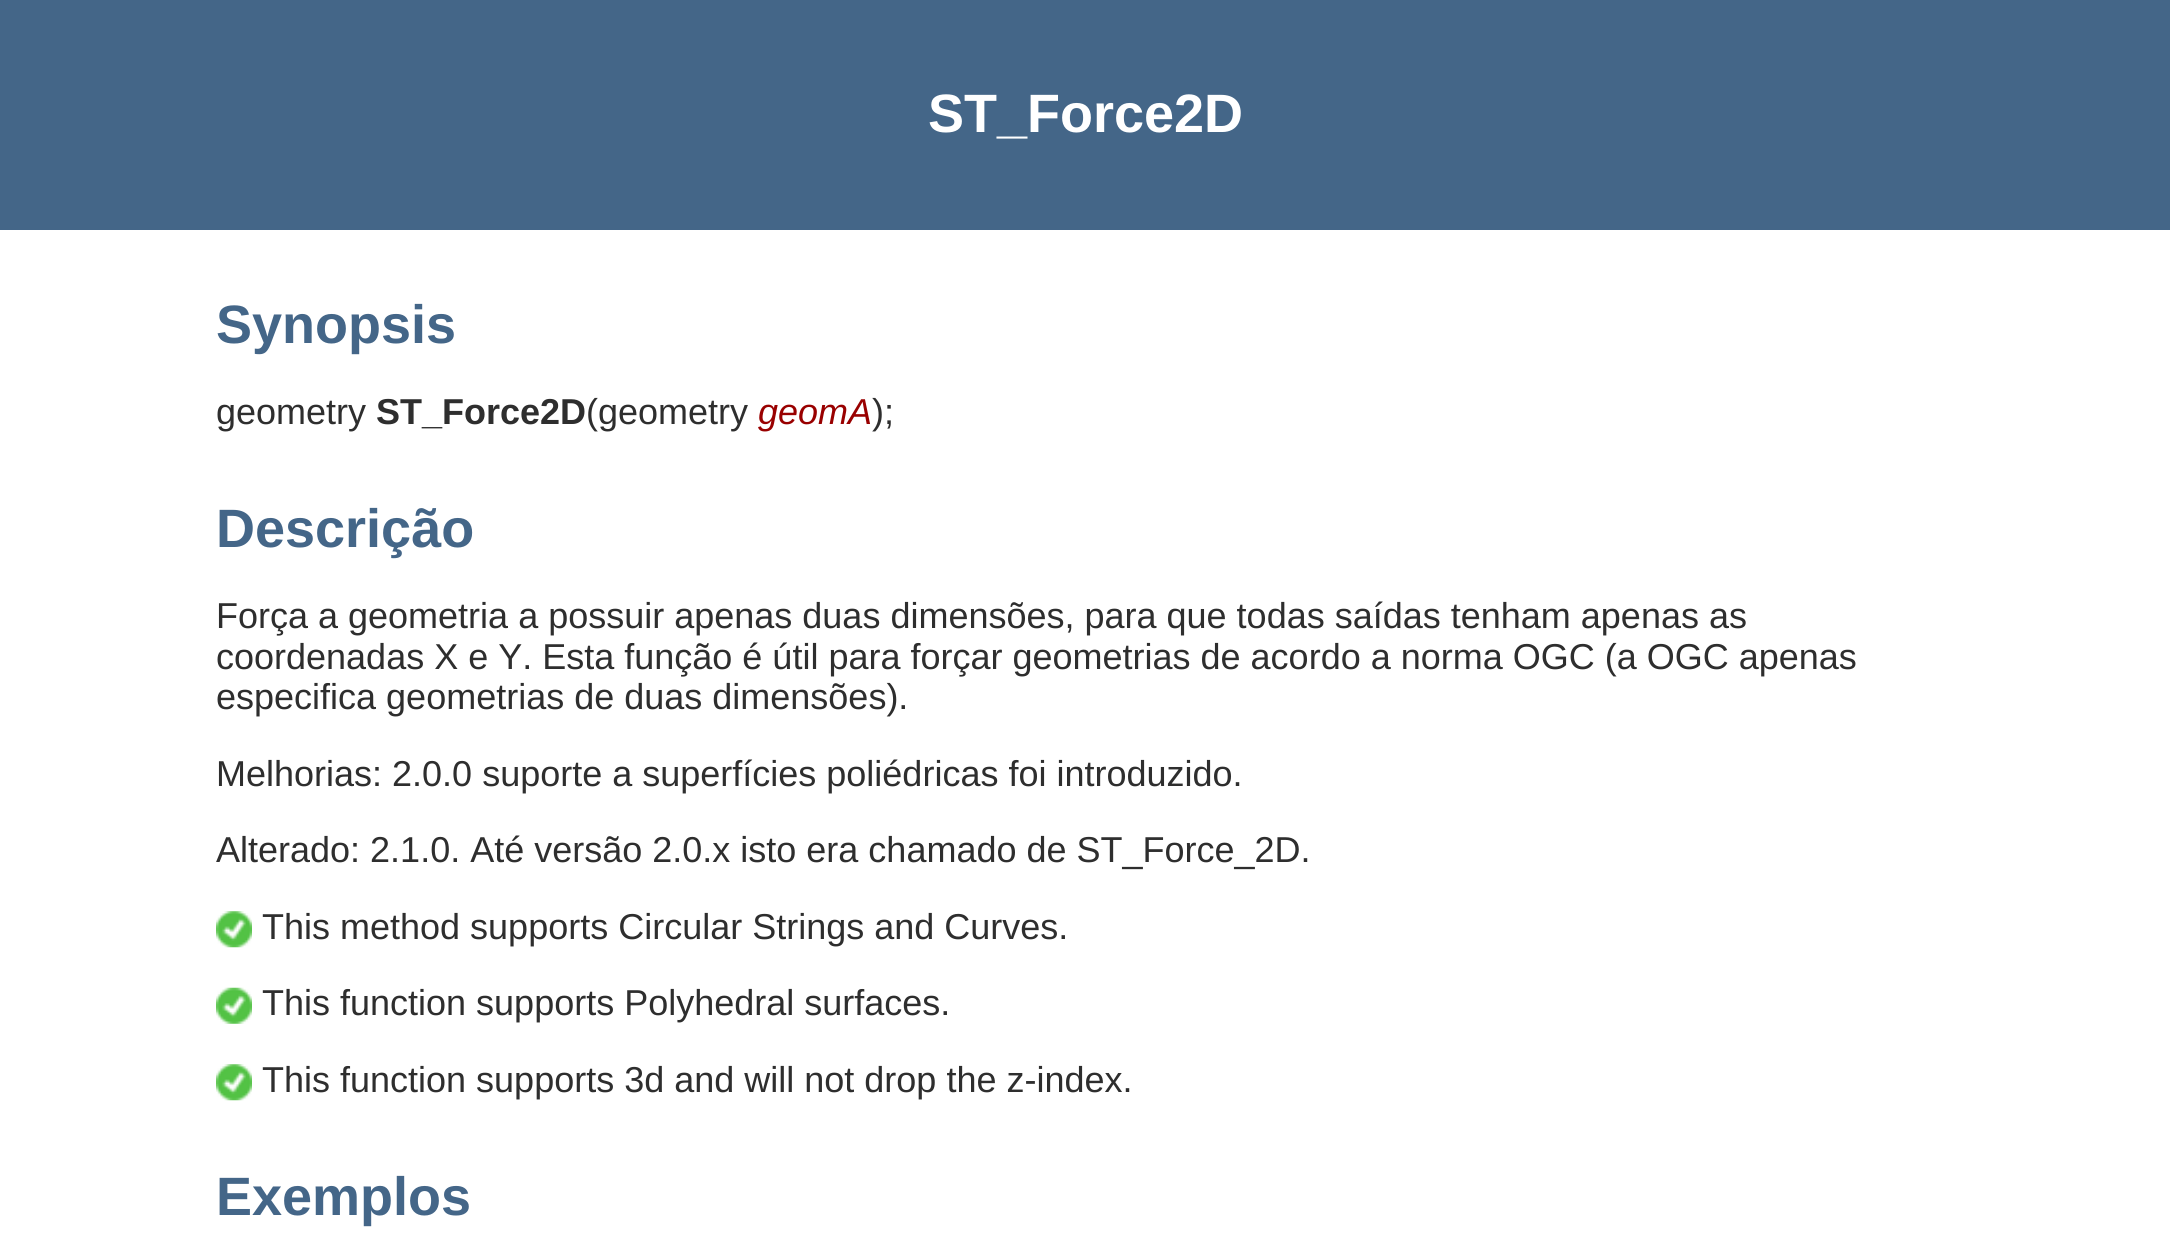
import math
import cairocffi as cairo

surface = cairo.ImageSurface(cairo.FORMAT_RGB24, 2170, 1236)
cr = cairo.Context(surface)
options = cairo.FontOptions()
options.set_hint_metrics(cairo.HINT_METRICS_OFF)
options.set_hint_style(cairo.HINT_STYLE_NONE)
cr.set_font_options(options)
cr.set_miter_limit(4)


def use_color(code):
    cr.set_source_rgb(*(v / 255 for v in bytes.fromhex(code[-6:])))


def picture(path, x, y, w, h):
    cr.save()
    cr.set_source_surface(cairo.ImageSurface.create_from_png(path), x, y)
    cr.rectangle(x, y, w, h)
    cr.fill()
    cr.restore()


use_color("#ffffff")
cr.paint()
use_color("#446688")
cr.rectangle(0, 0, 2170, 230)
cr.fill()
cr.select_font_face("Liberation Sans", cairo.FONT_SLANT_NORMAL, cairo.FONT_WEIGHT_BOLD)
cr.set_font_size(54)
use_color("#ffffff")
cr.move_to(928, 132)
cr.show_text("ST_Force2D")
use_color("#446688")
cr.move_to(216, 343)
cr.show_text("Synopsis")
cr.select_font_face("Liberation Sans")
cr.set_font_size(36)
use_color("#2e2e2e")
cr.move_to(216, 424)
cr.show_text("geometry")
cr.select_font_face("Liberation Sans", cairo.FONT_SLANT_NORMAL, cairo.FONT_WEIGHT_BOLD)
cr.move_to(376, 424)
cr.show_text("ST_Force2D")
cr.select_font_face("Liberation Sans")
cr.move_to(586, 424)
cr.show_text("(geometry")
cr.select_font_face("Liberation Sans", cairo.FONT_SLANT_ITALIC)
use_color("#990000")
cr.move_to(758, 424)
cr.show_text("geomA")
cr.select_font_face("Liberation Sans")
use_color("#2e2e2e")
cr.move_to(872, 424)
cr.show_text(");")
cr.select_font_face("Liberation Sans", cairo.FONT_SLANT_NORMAL, cairo.FONT_WEIGHT_BOLD)
cr.set_font_size(54)
use_color("#446688")
cr.move_to(216, 547)
cr.show_text("Descrição")
cr.select_font_face("Liberation Sans")
cr.set_font_size(36)
use_color("#2e2e2e")
cr.move_to(216, 628)
cr.show_text("Força a geometria a possuir apenas duas dimensões, para que todas saídas tenham apenas as")
cr.move_to(216, 669)
cr.show_text("coordenadas X e Y. Esta função é útil para forçar geometrias de acordo a norma OGC (a OGC apenas")
cr.move_to(216, 709)
cr.show_text("especifica geometrias de duas dimensões).")
cr.move_to(216, 786)
cr.show_text("Melhorias: 2.0.0 suporte a superfícies poliédricas foi introduzido.")
cr.move_to(216, 862)
cr.show_text("Alterado: 2.1.0. Até versão 2.0.x isto era chamado de ST_Force_2D.")
picture("img1.png", 216, 911, 36, 37)
cr.move_to(262, 939)
cr.show_text("This method supports Circular Strings and Curves.")
picture("img2.png", 216, 987, 36, 37)
cr.move_to(262, 1015)
cr.show_text("This function supports Polyhedral surfaces.")
picture("img1.png", 216, 1064, 36, 37)
cr.move_to(262, 1092)
cr.show_text("This function supports 3d and will not drop the z-index.")
cr.select_font_face("Liberation Sans", cairo.FONT_SLANT_NORMAL, cairo.FONT_WEIGHT_BOLD)
cr.set_font_size(54)
use_color("#446688")
cr.move_to(216, 1215)
cr.show_text("Exemplos")
surface.write_to_png("result.png")
